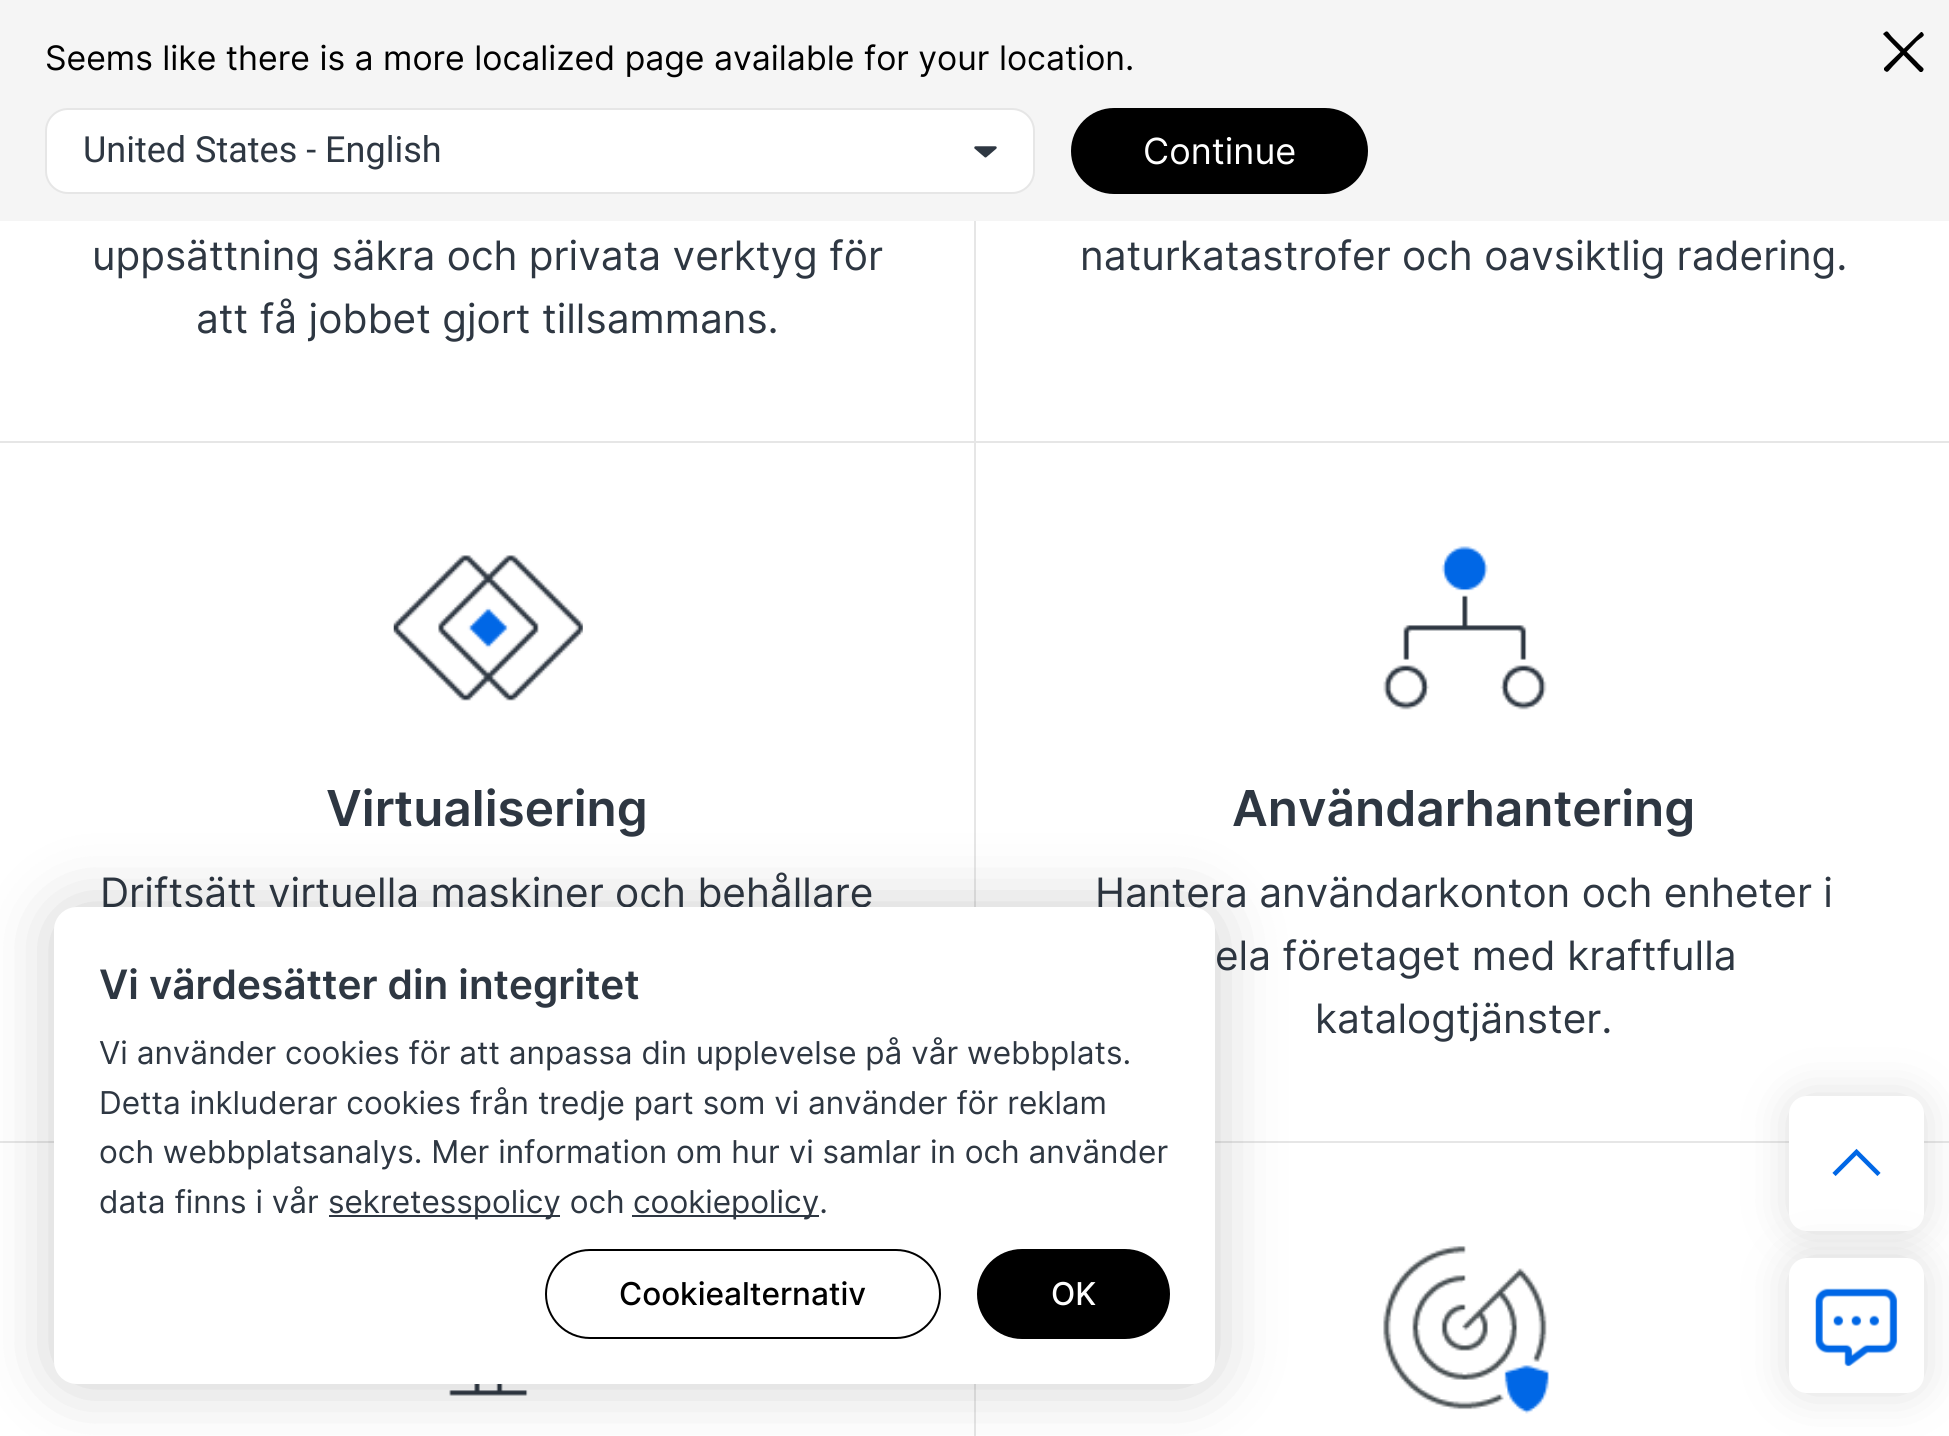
import math
import cairocffi as cairo

surface = cairo.ImageSurface(cairo.FORMAT_RGB24, 1949, 1436)
cr = cairo.Context(surface)
options = cairo.FontOptions()
options.set_hint_metrics(cairo.HINT_METRICS_OFF)
options.set_hint_style(cairo.HINT_STYLE_NONE)
cr.set_font_options(options)
cr.set_miter_limit(4)


def use_color(code):
    cr.set_source_rgb(*(v / 255 for v in bytes.fromhex(code[-6:])))


def round_rect(x, y, w, h, r):
    cr.new_sub_path()
    for i, (u, v) in enumerate([(x + w - r, y + h - r), (x + r, y + h - r), (x + r, y + r), (x + w - r, y + r)]):
        cr.arc(u, v, r, i * math.pi / 2, (i + 1) * math.pi / 2)
    cr.close_path()


def shadow(x, y, w, h, r, blur, alpha):
    cr.push_group_with_content(cairo.CONTENT_ALPHA)
    cr.set_operator(cairo.OPERATOR_SOURCE)
    for i in range(15, -16, -2):
        e = blur * i / 6
        if min(w, h) + 2 * e > 0:
            cr.set_source_rgba(0, 0, 0, alpha * math.erfc((i - 1) / 8.5) / 2)
            round_rect(x - e, y - e, w + 2 * e, h + 2 * e, max(0, min(r + e + blur * .6, min(w, h) / 2 + e)))
            cr.fill()
    cr.mask(cr.pop_group())


def picture(path, x, y, w, h):
    cr.save()
    cr.set_source_surface(cairo.ImageSurface.create_from_png(path), x, y)
    cr.rectangle(x, y, w, h)
    cr.fill()
    cr.restore()


use_color("#ffffff")
cr.paint()
use_color("#f5f5f5")
cr.rectangle(0, 0, 1949, 221)
cr.fill()
cr.select_font_face("Inter")
cr.set_font_size(33.75)
use_color("#000000")
cr.move_to(45, 70)
cr.show_text("Seems like there is a more localized page available for your location.")
cr.new_path()
cr.move_to(1922, 32)
cr.curve_to(1926, 36, 1923, 36, 1917, 41)
cr.line_to(1893, 66)
cr.curve_to(1888, 71, 1888, 74, 1884, 70)
cr.line_to(1884, 68)
cr.line_to(1921, 32)
cr.close_path()
cr.fill()
cr.new_path()
cr.move_to(1884, 33)
cr.curve_to(1888, 29, 1888, 33, 1893, 38)
cr.line_to(1917, 62)
cr.curve_to(1922, 68, 1926, 68, 1922, 72)
cr.line_to(1920, 72)
cr.line_to(1883, 34)
cr.close_path()
cr.fill()
use_color("#ffffff")
round_rect(46, 109, 988, 84, 22)
cr.fill_preserve()
use_color("#e6e6e6")
cr.stroke()
cr.select_font_face("Roboto")
cr.set_font_size(36)
use_color("#2e3742")
cr.move_to(83, 162)
cr.show_text("United States - English")
picture("img1.png", 974, 146, 23, 12)
use_color("#000000")
round_rect(1071, 108, 297, 86, 43)
cr.fill()
cr.select_font_face("Inter")
use_color("#ffffff")
cr.move_to(1143, 164)
cr.show_text("Continue")
use_color("#e6e6e6")
cr.rectangle(974, 221, 2, 220)
cr.fill()
cr.set_font_size(40.5)
use_color("#2e3742")
cr.move_to(92, 270)
cr.show_text("uppsättning säkra och privata verktyg för")
cr.move_to(196, 333)
cr.show_text("att få jobbet gjort tillsammans.")
cr.move_to(1080, 270)
cr.show_text("naturkatastrofer och oavsiktlig radering.")
use_color("#e6e6e6")
cr.rectangle(0, 441, 1949, 2)
cr.fill()
cr.rectangle(974, 441, 2, 466)
cr.fill()
picture("img2.png", 393, 555, 190, 146)
cr.select_font_face("Inter SemiBold")
cr.set_font_size(49.5)
use_color("#2e3742")
cr.move_to(326, 826)
cr.show_text("Virtualisering")
cr.select_font_face("Inter")
cr.set_font_size(40.5)
cr.move_to(100, 907)
cr.show_text("Driftsätt virtuella maskiner och behållare")
picture("img3.png", 1383, 546, 164, 164)
cr.select_font_face("Inter SemiBold")
cr.set_font_size(49.5)
cr.move_to(1232, 826)
cr.show_text("Användarhantering")
cr.select_font_face("Inter")
cr.set_font_size(40.5)
cr.move_to(1095, 907)
cr.show_text("Hantera användarkonton och enheter i")
cr.move_to(1215, 970)
cr.show_text("ela företaget med kraftfulla")
cr.move_to(1315, 1033)
cr.show_text("katalogtjänster.")
use_color("#e6e6e6")
cr.rectangle(0, 1141, 54, 2)
cr.fill()
cr.rectangle(974, 1384, 2, 52)
cr.fill()
picture("img4.png", 449, 1384, 79, 12)
cr.rectangle(1215, 1141, 734, 2)
cr.fill()
picture("img5.png", 1383, 1246, 166, 168)
use_color("#545454")
shadow(1789, 1096, 135, 135, 18, 22.5, 0.2)
use_color("#ffffff")
round_rect(1789, 1096, 135, 135, 18)
cr.fill()
cr.new_path()
cr.move_to(1879, 1174.5)
cr.line_to(1856.5, 1152)
cr.line_to(1834, 1174.5)
use_color("#0067e6")
cr.set_line_width(4.5)
cr.stroke()
use_color("#545454")
shadow(1789, 1258, 135, 135, 18, 22.5, 0.2)
use_color("#ffffff")
round_rect(1789, 1258, 135, 135, 18)
cr.fill()
picture("img6.png", 1815, 1288, 83, 79)
use_color("#000000")
shadow(54, 907, 1161, 477, 23, 34, 0.2)
use_color("#ffffff")
round_rect(54, 907, 1161, 477, 23)
cr.fill()
cr.select_font_face("Inter SemiBold")
use_color("#2e3742")
cr.move_to(99, 999)
cr.show_text("Vi värdesätter din integritet")
cr.select_font_face("Inter")
cr.set_font_size(31.5)
cr.move_to(99, 1064)
cr.show_text("Vi använder cookies för att anpassa din upplevelse på vår webbplats.")
cr.move_to(99, 1114)
cr.show_text("Detta inkluderar cookies från tredje part som vi använder för reklam")
cr.move_to(99, 1163)
cr.show_text("och webbplatsanalys. Mer information om hur vi samlar in och använder")
cr.move_to(99, 1213)
cr.show_text("data finns i vår")
cr.rectangle(329, 1215, 231, 2)
cr.fill()
cr.move_to(328, 1213)
cr.show_text("sekretesspolicy och")
cr.rectangle(632, 1215, 187, 2)
cr.fill()
cr.move_to(633, 1213)
cr.show_text("cookiepolicy.")
round_rect(546, 1250, 394, 88, 44)
use_color("#000000")
cr.set_line_width(2)
cr.stroke()
cr.select_font_face("Inter Medium")
cr.move_to(619, 1305)
cr.show_text("Cookiealternativ")
round_rect(978, 1250, 191, 88, 44)
cr.fill_preserve()
cr.stroke()
use_color("#ffffff")
cr.move_to(1051, 1305)
cr.show_text("OK")
surface.write_to_png("result.png")
